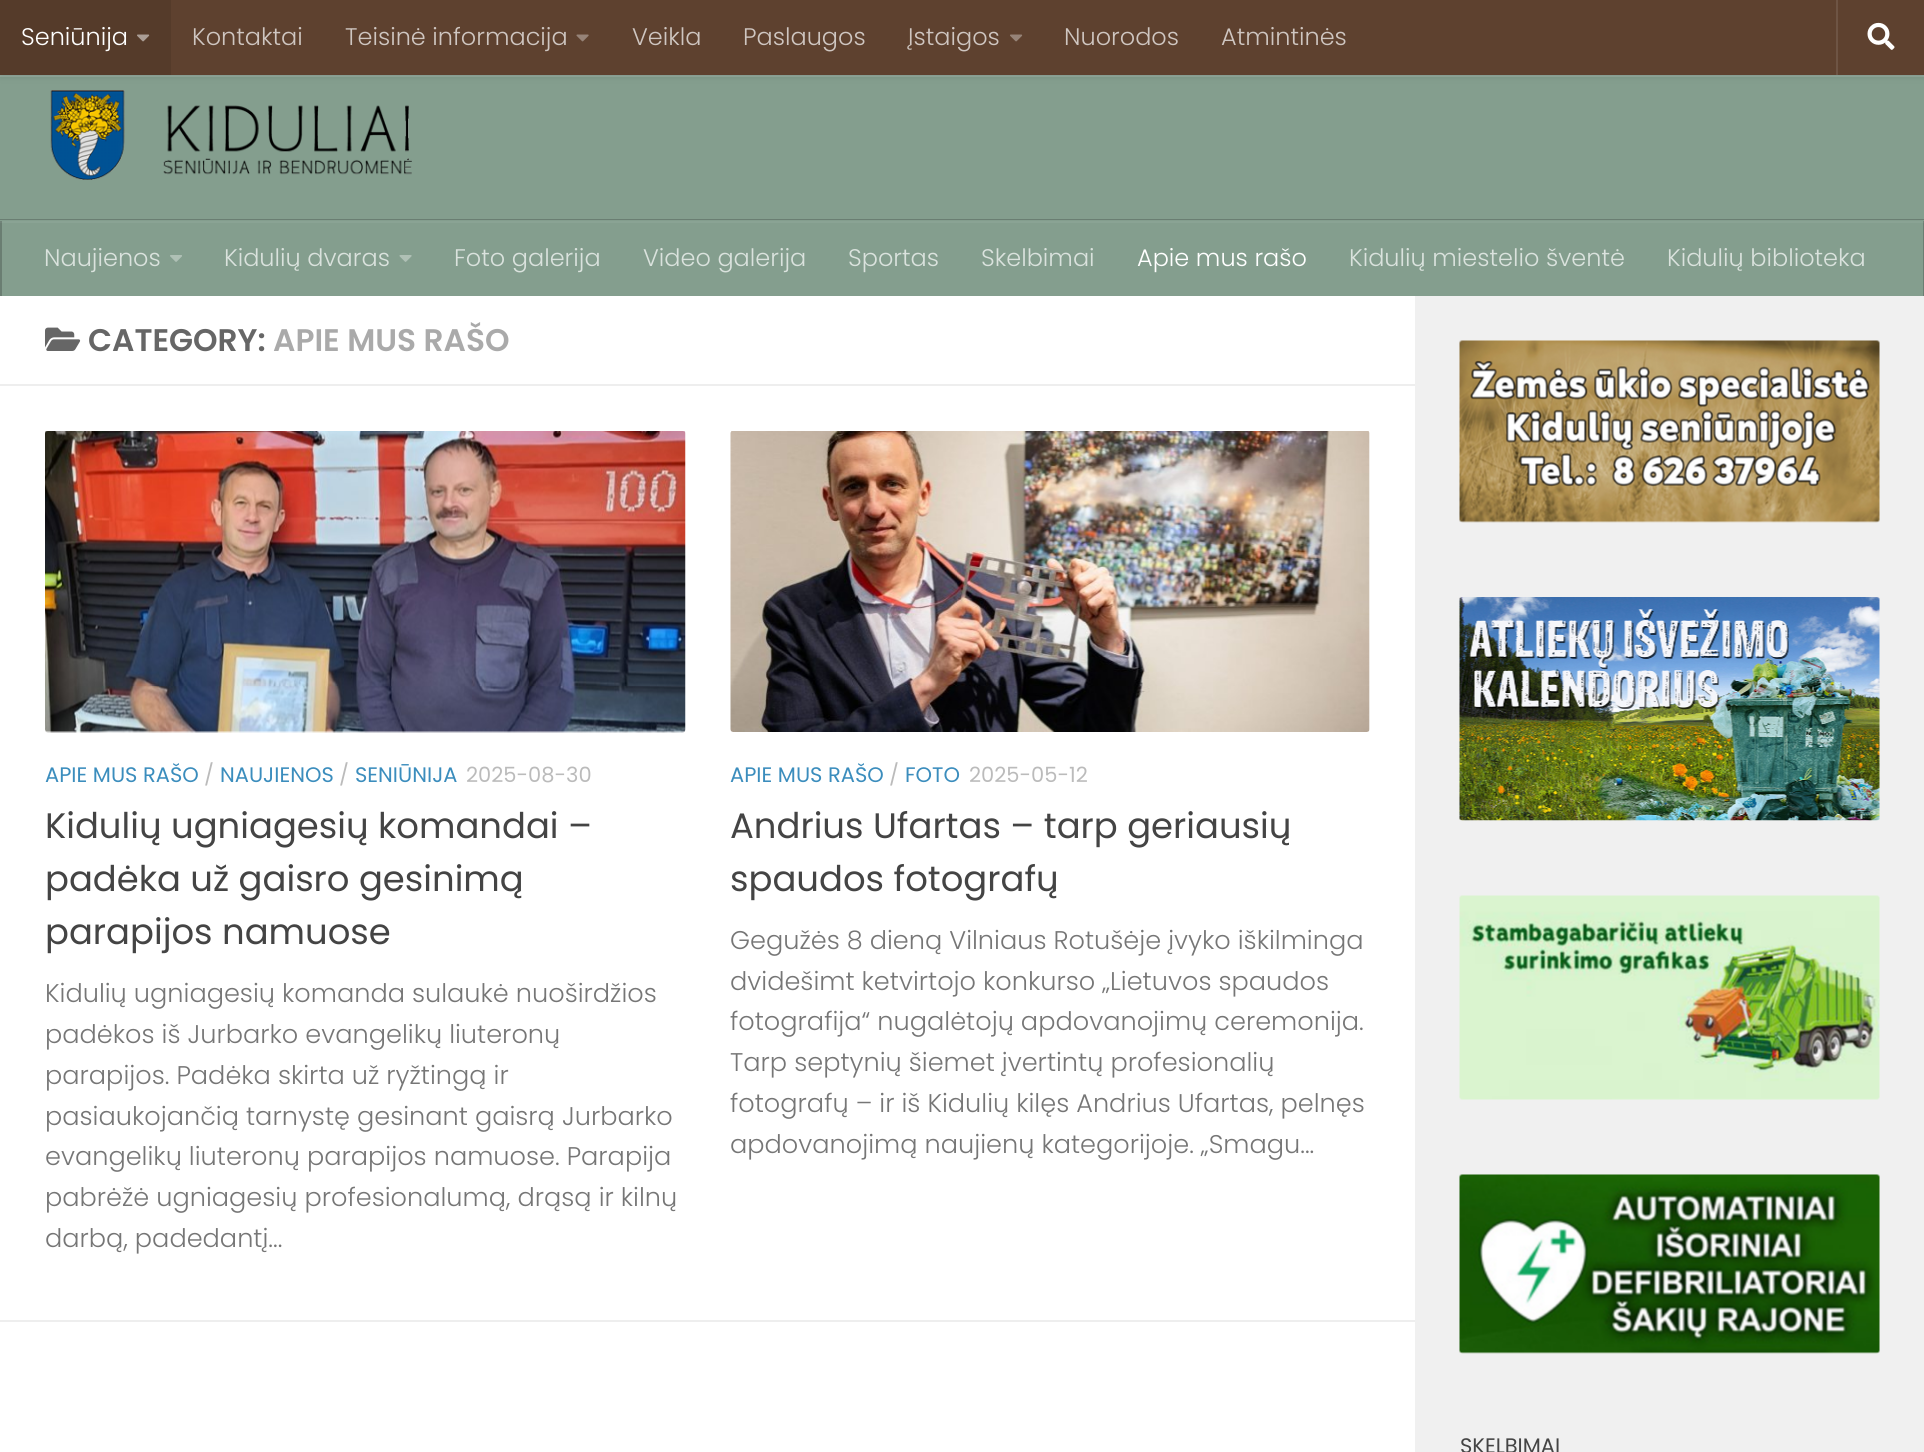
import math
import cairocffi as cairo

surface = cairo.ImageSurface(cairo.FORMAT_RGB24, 1924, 1452)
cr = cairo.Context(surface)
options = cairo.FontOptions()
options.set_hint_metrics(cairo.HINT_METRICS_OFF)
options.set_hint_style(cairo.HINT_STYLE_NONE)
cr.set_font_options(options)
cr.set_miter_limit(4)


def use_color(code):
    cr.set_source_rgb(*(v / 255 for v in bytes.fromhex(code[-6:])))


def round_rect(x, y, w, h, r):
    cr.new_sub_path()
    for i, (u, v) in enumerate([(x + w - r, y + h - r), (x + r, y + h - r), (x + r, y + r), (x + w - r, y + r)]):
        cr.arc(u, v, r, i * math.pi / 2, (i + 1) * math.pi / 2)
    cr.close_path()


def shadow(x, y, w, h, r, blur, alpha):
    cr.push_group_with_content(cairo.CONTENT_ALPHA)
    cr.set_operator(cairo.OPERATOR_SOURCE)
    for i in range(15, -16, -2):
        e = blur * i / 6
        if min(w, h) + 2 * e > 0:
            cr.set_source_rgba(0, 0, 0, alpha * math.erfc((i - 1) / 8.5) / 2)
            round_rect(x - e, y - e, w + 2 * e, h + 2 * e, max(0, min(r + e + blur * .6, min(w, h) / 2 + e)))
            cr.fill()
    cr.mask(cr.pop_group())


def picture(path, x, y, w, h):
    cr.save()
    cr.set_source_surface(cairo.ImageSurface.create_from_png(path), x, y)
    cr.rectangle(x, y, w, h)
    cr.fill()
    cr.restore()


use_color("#849e8e")
cr.paint()
use_color("#8aa394")
cr.rectangle(0, 221, 1924, 2)
cr.fill()
use_color("#96ad9f")
cr.new_path()
cr.move_to(0, 75)
cr.line_to(0, 77)
cr.line_to(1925, 77)
cr.line_to(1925, 2)
cr.line_to(1924, 2)
cr.line_to(1924, 75)
cr.close_path()
cr.fill()
use_color("#000000")
shadow(0, 0, 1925, 75, 0, 4, 0.2)
use_color("#5e412f")
cr.rectangle(171, 0, 1753, 75)
cr.fill()
use_color("#553b2a")
cr.rectangle(0, 0, 171, 75)
cr.fill()
cr.select_font_face("Poppins Light")
cr.set_font_size(24)
use_color("#ffffff")
cr.move_to(21, 45)
cr.show_text("Seniūnija")
picture("img1.png", 137, 34, 13, 8)
use_color("#cfc6c1")
cr.move_to(192, 45)
cr.show_text("Kontaktai")
cr.move_to(345, 45)
cr.show_text("Teisinė informacija")
picture("img2.png", 576, 34, 13, 8)
cr.move_to(632, 45)
cr.show_text("Veikla")
cr.move_to(743, 45)
cr.show_text("Paslaugos")
cr.move_to(908, 45)
cr.show_text("Įstaigos")
picture("img3.png", 1010, 34, 13, 8)
cr.move_to(1064, 45)
cr.show_text("Nuorodos")
cr.move_to(1221, 45)
cr.show_text("Atmintinės")
use_color("#6e5444")
cr.rectangle(1836, 0, 2, 75)
cr.fill()
picture("img4.png", 1867, 22, 28, 28)
picture("img5.png", 50, 90, 362, 90)
use_color("#6a7e72")
cr.new_path()
cr.move_to(0, 219)
cr.line_to(0, 220)
cr.line_to(1924, 220)
cr.line_to(1924, 294)
cr.line_to(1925, 294)
cr.line_to(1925, 219)
cr.close_path()
cr.fill()
cr.rectangle(1923, 221, 1, 75)
cr.fill()
use_color("#718479")
cr.rectangle(1923, 221, 1, 2)
cr.fill()
use_color("#6a7e72")
cr.rectangle(0, 221, 2, 75)
cr.fill()
use_color("#718479")
cr.rectangle(0, 221, 2, 2)
cr.fill()
use_color("#dae2dd")
cr.move_to(44, 266)
cr.show_text("Naujienos")
picture("img6.png", 170, 255, 12, 7)
cr.move_to(224, 266)
cr.show_text("Kidulių dvaras")
picture("img7.png", 399, 255, 13, 7)
cr.move_to(454, 266)
cr.show_text("Foto galerija")
cr.move_to(643, 266)
cr.show_text("Video galerija")
cr.move_to(848, 266)
cr.show_text("Sportas")
cr.move_to(981, 266)
cr.show_text("Skelbimai")
use_color("#ffffff")
cr.move_to(1137, 266)
cr.show_text("Apie mus rašo")
use_color("#dae2dd")
cr.move_to(1349, 266)
cr.show_text("Kidulių miestelio šventė")
cr.move_to(1667, 266)
cr.show_text("Kidulių biblioteka")
use_color("#ffffff")
cr.rectangle(0, 296, 1415, 1156)
cr.fill()
use_color("#eeeeee")
cr.rectangle(0, 384, 1415, 2)
cr.fill()
picture("img8.png", 45, 327, 36, 24)
cr.select_font_face("Poppins SemiBold")
cr.set_font_size(31.25)
use_color("#666666")
cr.move_to(88, 351)
cr.show_text("CATEGORY:")
use_color("#aaaaaa")
cr.move_to(273, 351)
cr.show_text("APIE MUS RAŠO")
use_color("#eeeeee")
cr.rectangle(0, 1320, 1415, 2)
cr.fill()
picture("img9.png", 45, 431, 641, 302)
cr.select_font_face("Poppins")
cr.set_font_size(21)
use_color("#3b8dbd")
cr.move_to(45, 782)
cr.show_text("APIE MUS RAŠO")
use_color("#bbbbbb")
cr.move_to(204, 782)
cr.show_text("/")
use_color("#3b8dbd")
cr.move_to(220, 782)
cr.show_text("NAUJIENOS")
use_color("#bbbbbb")
cr.move_to(339, 782)
cr.show_text("/")
use_color("#3b8dbd")
cr.move_to(355, 782)
cr.show_text("SENIŪNIJA")
use_color("#bbbbbb")
cr.move_to(466, 782)
cr.show_text("2025-08-30")
cr.set_font_size(35.4)
use_color("#444444")
cr.move_to(45, 838)
cr.show_text("Kidulių ugniagesių komandai –")
cr.move_to(45, 891)
cr.show_text("padėka už gaisro gesinimą")
cr.move_to(45, 944)
cr.show_text("parapijos namuose")
cr.select_font_face("Poppins Light")
cr.set_font_size(25.6)
use_color("#767676")
cr.move_to(45, 1002)
cr.show_text("Kidulių ugniagesių komanda sulaukė nuoširdžios")
cr.move_to(45, 1043)
cr.show_text("padėkos iš Jurbarko evangelikų liuteronų")
cr.move_to(45, 1084)
cr.show_text("parapijos. Padėka skirta už ryžtingą ir")
cr.move_to(45, 1125)
cr.show_text("pasiaukojančią tarnystę gesinant gaisrą Jurbarko")
cr.move_to(45, 1165)
cr.show_text("evangelikų liuteronų parapijos namuose. Parapija")
cr.move_to(45, 1206)
cr.show_text("pabrėžė ugniagesių profesionalumą, drąsą ir kilnų")
cr.move_to(45, 1247)
cr.show_text("darbą, padedantį...")
picture("img10.png", 730, 431, 640, 301)
cr.select_font_face("Poppins")
cr.set_font_size(21)
use_color("#3b8dbd")
cr.move_to(730, 782)
cr.show_text("APIE MUS RAŠO")
use_color("#bbbbbb")
cr.move_to(889, 782)
cr.show_text("/")
use_color("#3b8dbd")
cr.move_to(905, 782)
cr.show_text("FOTO")
use_color("#bbbbbb")
cr.move_to(969, 782)
cr.show_text("2025-05-12")
cr.set_font_size(35.4)
use_color("#444444")
cr.move_to(730, 838)
cr.show_text("Andrius Ufartas – tarp geriausių")
cr.move_to(730, 891)
cr.show_text("spaudos fotografų")
cr.select_font_face("Poppins Light")
cr.set_font_size(25.6)
use_color("#767676")
cr.move_to(730, 949)
cr.show_text("Gegužės 8 dieną Vilniaus Rotušėje įvyko iškilminga")
cr.move_to(730, 990)
cr.show_text("dvidešimt ketvirtojo konkurso „Lietuvos spaudos")
cr.move_to(730, 1030)
cr.show_text("fotografija“ nugalėtojų apdovanojimų ceremonija.")
cr.move_to(730, 1071)
cr.show_text("Tarp septynių šiemet įvertintų profesionalių")
cr.move_to(730, 1112)
cr.show_text("fotografų – ir iš Kidulių kilęs Andrius Ufartas, pelnęs")
cr.move_to(730, 1153)
cr.show_text("apdovanojimą naujienų kategorijoje. „Smagu...")
use_color("#f0f0f0")
cr.rectangle(1415, 296, 509, 1156)
cr.fill()
picture("img11.png", 1459, 340, 421, 183)
picture("img12.png", 1459, 597, 421, 224)
picture("img13.png", 1459, 895, 421, 205)
picture("img14.png", 1459, 1174, 421, 180)
cr.select_font_face("Poppins")
cr.set_font_size(21)
use_color("#444444")
cr.move_to(1460, 1453)
cr.show_text("SKELBIMAI")
surface.write_to_png("result.png")
